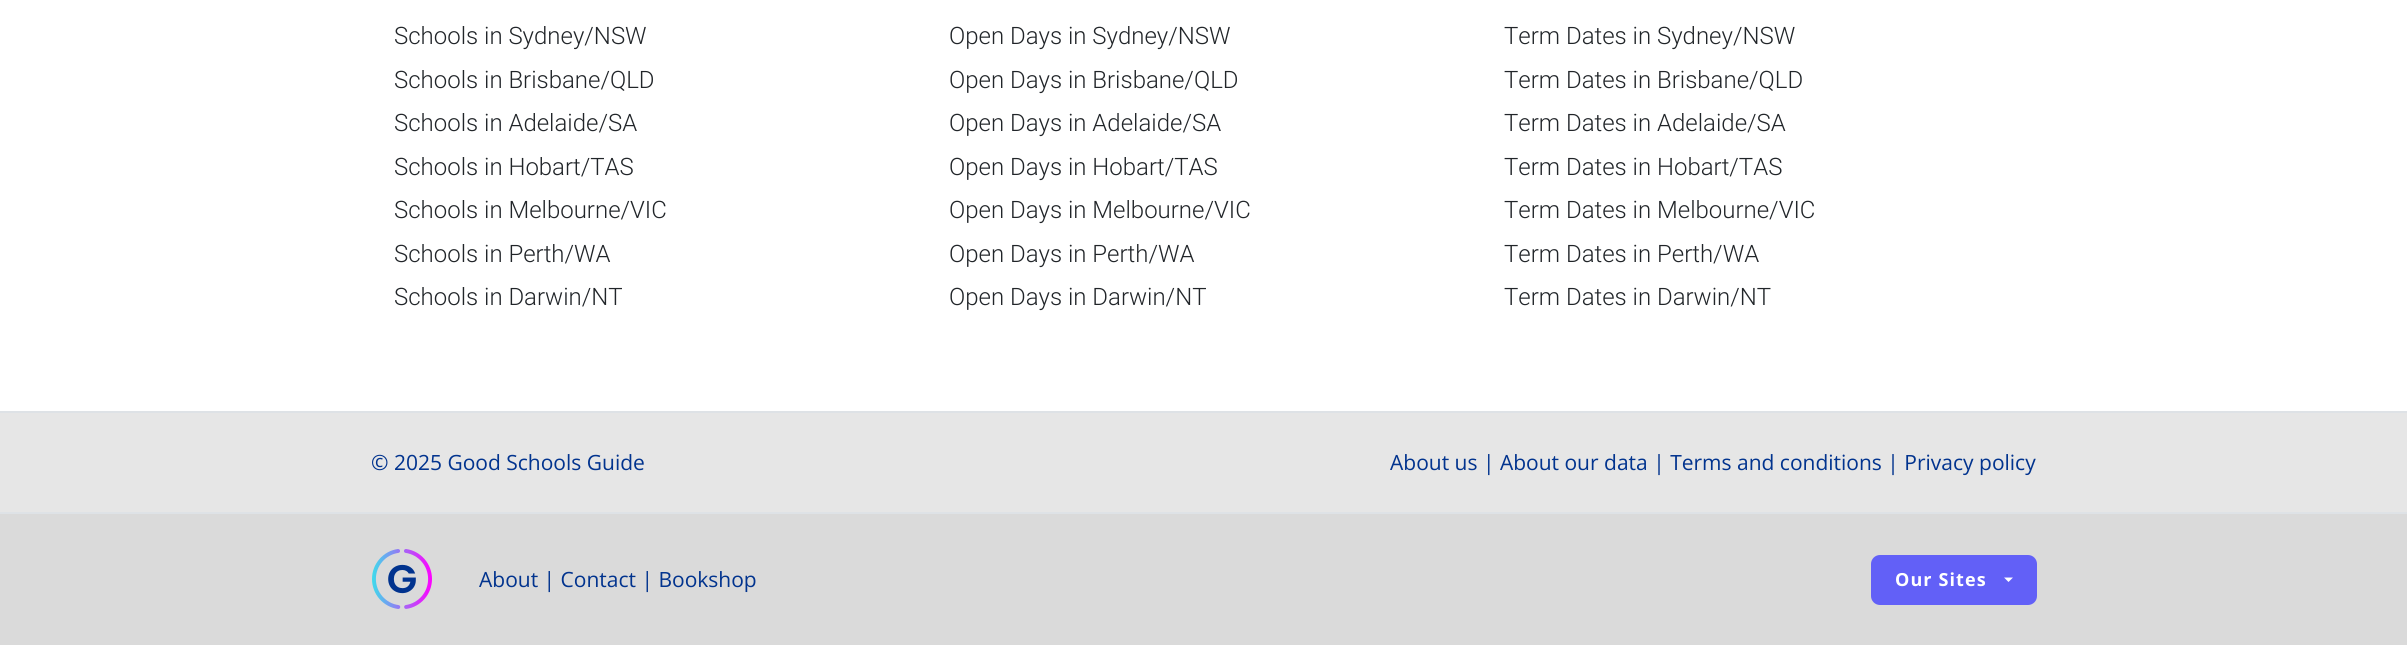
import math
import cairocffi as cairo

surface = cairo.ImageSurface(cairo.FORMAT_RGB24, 2407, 645)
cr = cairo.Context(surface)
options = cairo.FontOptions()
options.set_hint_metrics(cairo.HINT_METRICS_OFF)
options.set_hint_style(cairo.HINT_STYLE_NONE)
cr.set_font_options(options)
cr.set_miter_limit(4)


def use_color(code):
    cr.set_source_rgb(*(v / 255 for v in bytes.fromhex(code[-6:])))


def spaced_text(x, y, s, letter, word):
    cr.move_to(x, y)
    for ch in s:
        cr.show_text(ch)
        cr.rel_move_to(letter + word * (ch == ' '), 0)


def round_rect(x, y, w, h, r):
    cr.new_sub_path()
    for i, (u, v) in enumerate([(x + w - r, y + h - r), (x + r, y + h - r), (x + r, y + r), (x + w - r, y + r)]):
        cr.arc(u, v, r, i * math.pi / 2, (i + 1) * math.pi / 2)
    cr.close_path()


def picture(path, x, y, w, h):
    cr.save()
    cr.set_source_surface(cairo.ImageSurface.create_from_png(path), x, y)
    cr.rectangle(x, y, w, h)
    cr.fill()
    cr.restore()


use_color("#ffffff")
cr.paint()
cr.select_font_face("Roboto Light")
cr.set_font_size(24)
use_color("#212529")
cr.move_to(394, 44)
cr.show_text("Schools in Sydney/NSW")
cr.move_to(394, 88)
cr.show_text("Schools in Brisbane/QLD")
cr.move_to(394, 131)
cr.show_text("Schools in Adelaide/SA")
cr.move_to(394, 175)
cr.show_text("Schools in Hobart/TAS")
cr.move_to(394, 218)
cr.show_text("Schools in Melbourne/VIC")
cr.move_to(394, 262)
cr.show_text("Schools in Perth/WA")
cr.move_to(394, 305)
cr.show_text("Schools in Darwin/NT")
cr.move_to(949, 44)
cr.show_text("Open Days in Sydney/NSW")
cr.move_to(949, 88)
cr.show_text("Open Days in Brisbane/QLD")
cr.move_to(949, 131)
cr.show_text("Open Days in Adelaide/SA")
cr.move_to(949, 175)
cr.show_text("Open Days in Hobart/TAS")
cr.move_to(949, 218)
cr.show_text("Open Days in Melbourne/VIC")
cr.move_to(949, 262)
cr.show_text("Open Days in Perth/WA")
cr.move_to(949, 305)
cr.show_text("Open Days in Darwin/NT")
cr.move_to(1504, 44)
cr.show_text("Term Dates in Sydney/NSW")
cr.move_to(1504, 88)
cr.show_text("Term Dates in Brisbane/QLD")
cr.move_to(1504, 131)
cr.show_text("Term Dates in Adelaide/SA")
cr.move_to(1504, 175)
cr.show_text("Term Dates in Hobart/TAS")
cr.move_to(1504, 218)
cr.show_text("Term Dates in Melbourne/VIC")
cr.move_to(1504, 262)
cr.show_text("Term Dates in Perth/WA")
cr.move_to(1504, 305)
cr.show_text("Term Dates in Darwin/NT")
use_color("#e6e6e6")
cr.rectangle(0, 413, 2407, 99)
cr.fill()
use_color("#dee2e6")
cr.rectangle(0, 411, 2407, 2)
cr.fill()
cr.select_font_face("Open Sans")
cr.set_font_size(21)
use_color("#01338e")
cr.move_to(371, 470)
cr.show_text("© 2025 Good Schools Guide")
cr.move_to(1390, 470)
cr.show_text("About us | About our data | Terms and conditions | Privacy policy")
use_color("#dadada")
cr.rectangle(0, 514, 2407, 131)
cr.fill()
use_color("#dee2e6")
cr.rectangle(0, 512, 2407, 2)
cr.fill()
picture("img1.png", 372, 549, 60, 60)
use_color("#01338e")
cr.move_to(479, 587)
cr.show_text("About | Contact | Bookshop")
use_color("#6260f7")
round_rect(1871, 555, 166, 50, 9)
cr.fill()
cr.select_font_face("Open Sans", cairo.FONT_SLANT_NORMAL, cairo.FONT_WEIGHT_BOLD)
cr.set_font_size(18)
use_color("#ffffff")
spaced_text(1895, 586, "Our Sites", 1.1, 0)
cr.new_path()
cr.move_to(2004, 577.5)
cr.line_to(2013, 577.5)
cr.line_to(2008.5, 582)
cr.close_path()
cr.fill()
surface.write_to_png("result.png")
